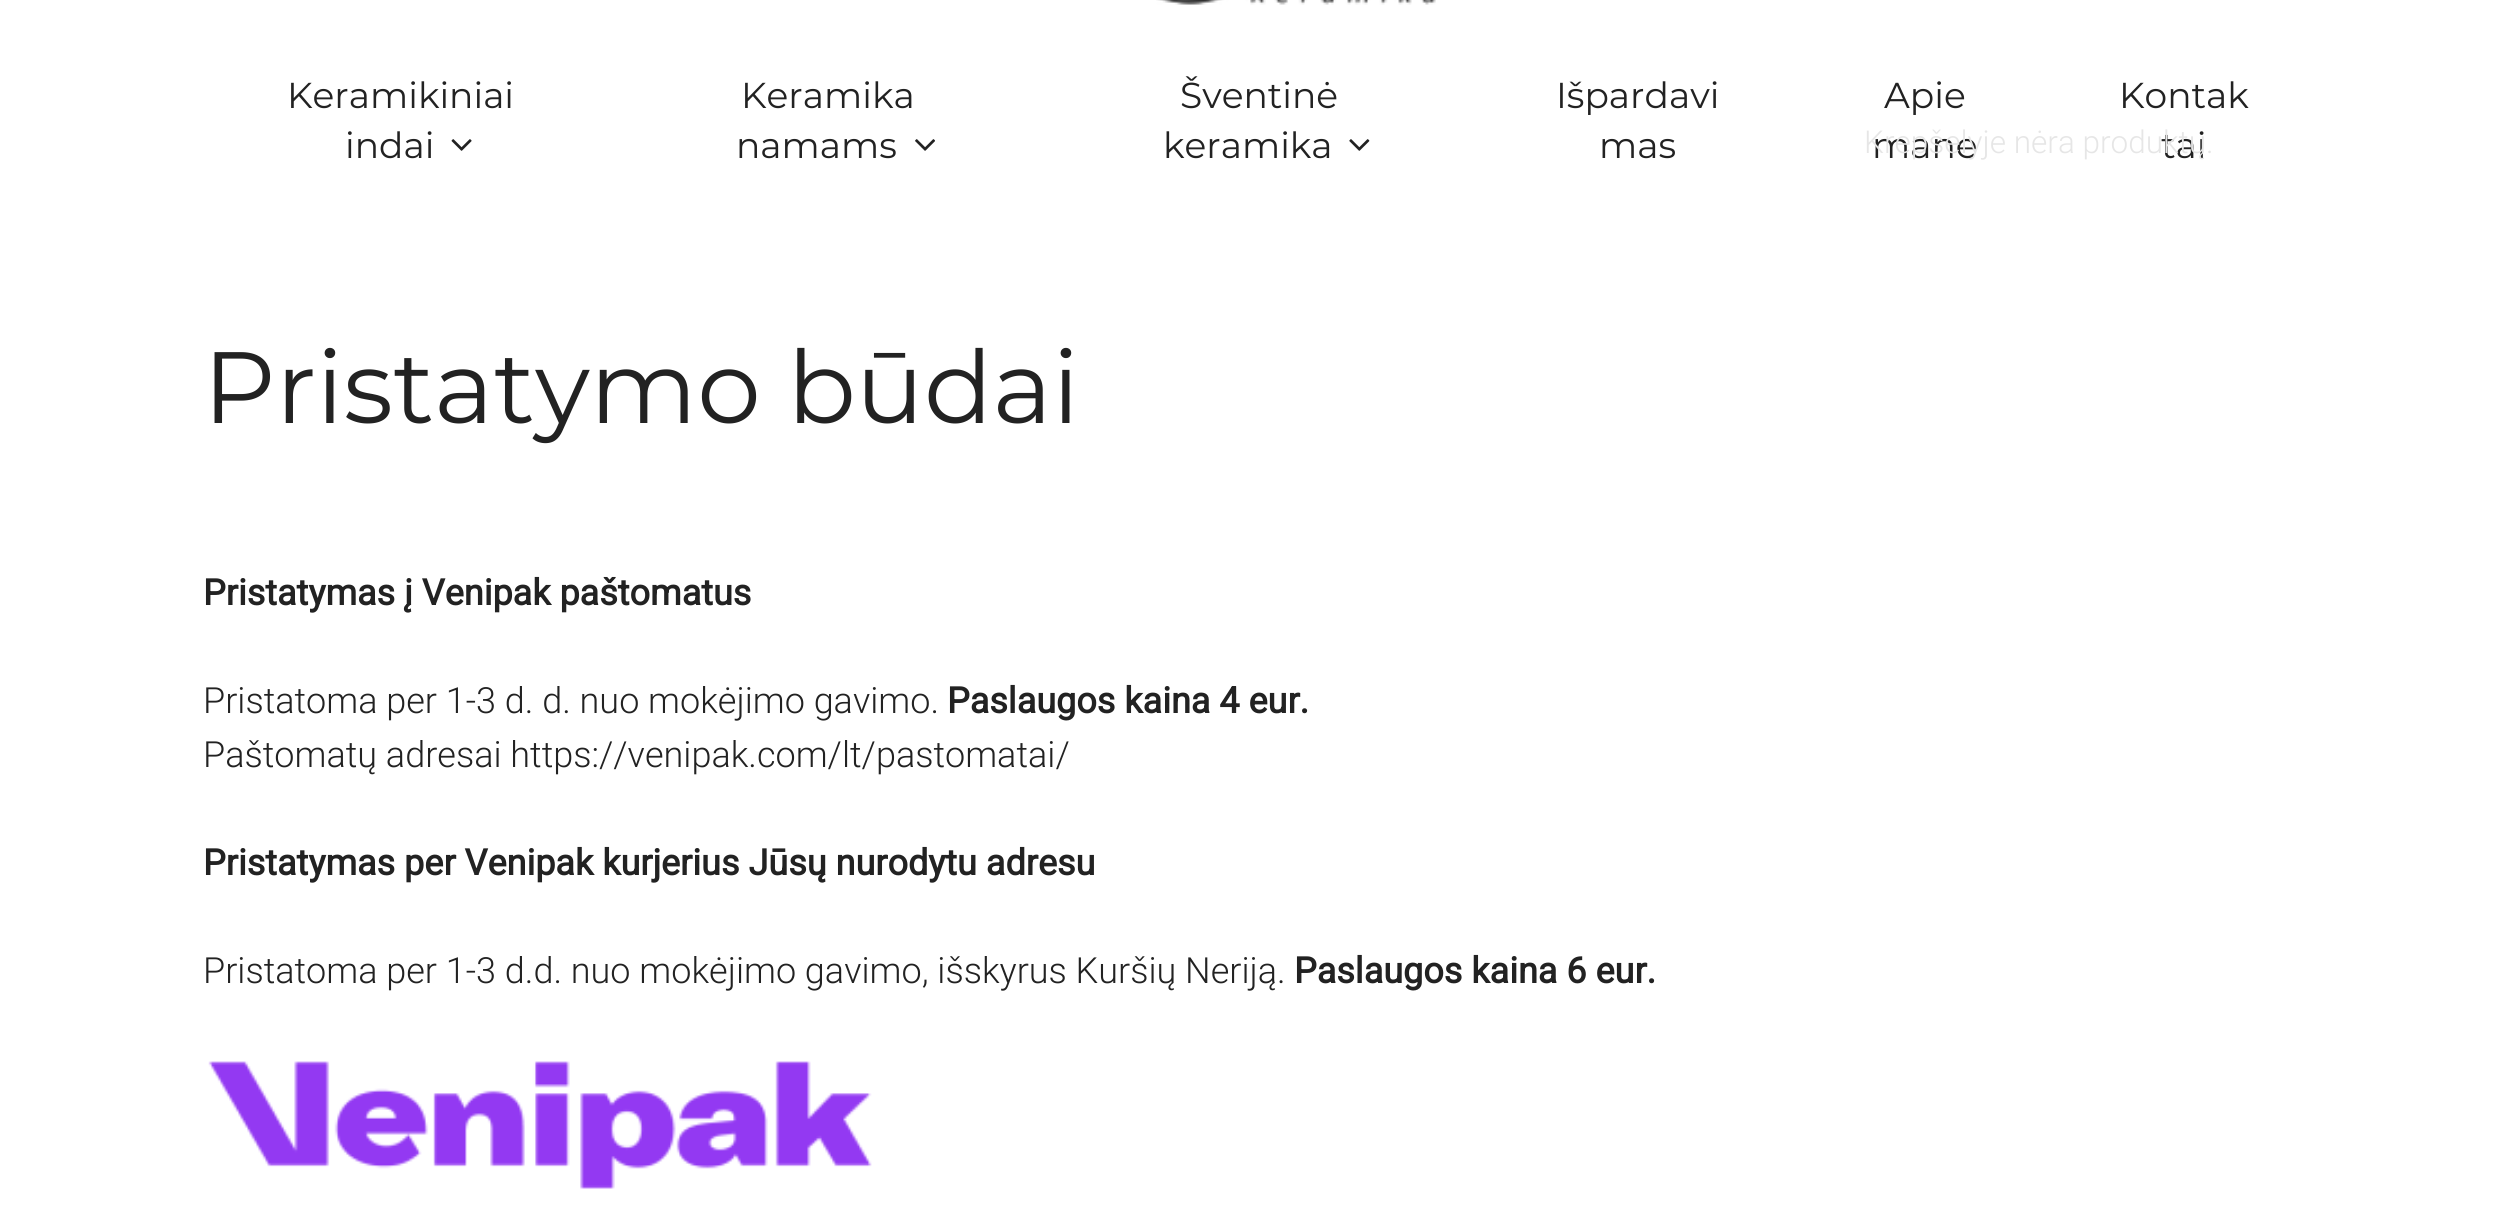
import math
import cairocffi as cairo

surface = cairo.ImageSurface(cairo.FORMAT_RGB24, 2511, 1225)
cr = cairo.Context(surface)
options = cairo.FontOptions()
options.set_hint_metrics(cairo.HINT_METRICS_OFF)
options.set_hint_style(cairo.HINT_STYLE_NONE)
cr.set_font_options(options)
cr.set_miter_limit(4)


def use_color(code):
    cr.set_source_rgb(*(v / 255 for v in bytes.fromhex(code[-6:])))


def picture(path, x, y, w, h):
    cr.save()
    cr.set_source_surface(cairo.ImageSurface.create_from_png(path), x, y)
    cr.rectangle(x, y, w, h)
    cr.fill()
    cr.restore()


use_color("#ffffff")
cr.paint()
cr.select_font_face("Montserrat Thin")
cr.set_font_size(36)
use_color("#222222")
cr.move_to(287, 108)
cr.show_text("Keramikiniai")
cr.move_to(345, 158)
cr.show_text("indai")
picture("img1.png", 451, 139, 21, 12)
cr.move_to(741, 108)
cr.show_text("Keramika")
cr.move_to(736, 158)
cr.show_text("namams")
picture("img2.png", 915, 139, 20, 12)
cr.move_to(1180, 108)
cr.show_text("Šventinė")
cr.move_to(1163, 158)
cr.show_text("keramika")
picture("img3.png", 1349, 139, 21, 12)
cr.move_to(1556, 108)
cr.show_text("Išpardavi")
cr.move_to(1599, 158)
cr.show_text("mas")
cr.move_to(1884, 108)
cr.show_text("Apie")
cr.move_to(1872, 158)
cr.show_text("mane")
cr.move_to(2119, 108)
cr.show_text("Kontak")
cr.move_to(2161, 158)
cr.show_text("tai")
picture("img4.png", 1156, 0, 280, 5)
cr.select_font_face("Roboto Light")
cr.set_font_size(31.5)
use_color("#e6e6e6")
cr.move_to(1864, 153)
cr.show_text("Krepšelyje nėra produktų.")
cr.select_font_face("Montserrat Thin")
cr.set_font_size(101.25)
use_color("#222222")
cr.move_to(203, 423)
cr.show_text("Pristatymo būdai")
cr.select_font_face("Roboto", cairo.FONT_SLANT_NORMAL, cairo.FONT_WEIGHT_BOLD)
cr.set_font_size(36)
cr.move_to(203, 605)
cr.show_text("Pristatymas į Venipak paštomatus")
cr.select_font_face("Roboto Light")
cr.move_to(203, 713)
cr.show_text("Pristatoma per 1-3 d. d. nuo mokėjimo gavimo.")
cr.select_font_face("Roboto", cairo.FONT_SLANT_NORMAL, cairo.FONT_WEIGHT_BOLD)
cr.move_to(947, 713)
cr.show_text("Paslaugos kaina 4 eur.")
cr.select_font_face("Roboto Light")
cr.move_to(203, 767)
cr.show_text("Paštomatų adresai https://venipak.com/lt/pastomatai/")
cr.select_font_face("Roboto", cairo.FONT_SLANT_NORMAL, cairo.FONT_WEIGHT_BOLD)
cr.move_to(203, 875)
cr.show_text("Pristatymas per Venipak kurjerius Jūsų nurodytu adresu")
cr.select_font_face("Roboto Light")
cr.move_to(203, 983)
cr.show_text("Pristatoma per 1-3 d.d. nuo mokėjimo gavimo, išskyrus Kuršių Neriją.")
cr.select_font_face("Roboto", cairo.FONT_SLANT_NORMAL, cairo.FONT_WEIGHT_BOLD)
cr.move_to(1294, 983)
cr.show_text("Paslaugos kaina 6 eur.")
picture("img5.png", 208, 1061, 664, 128)
surface.write_to_png("result.png")
